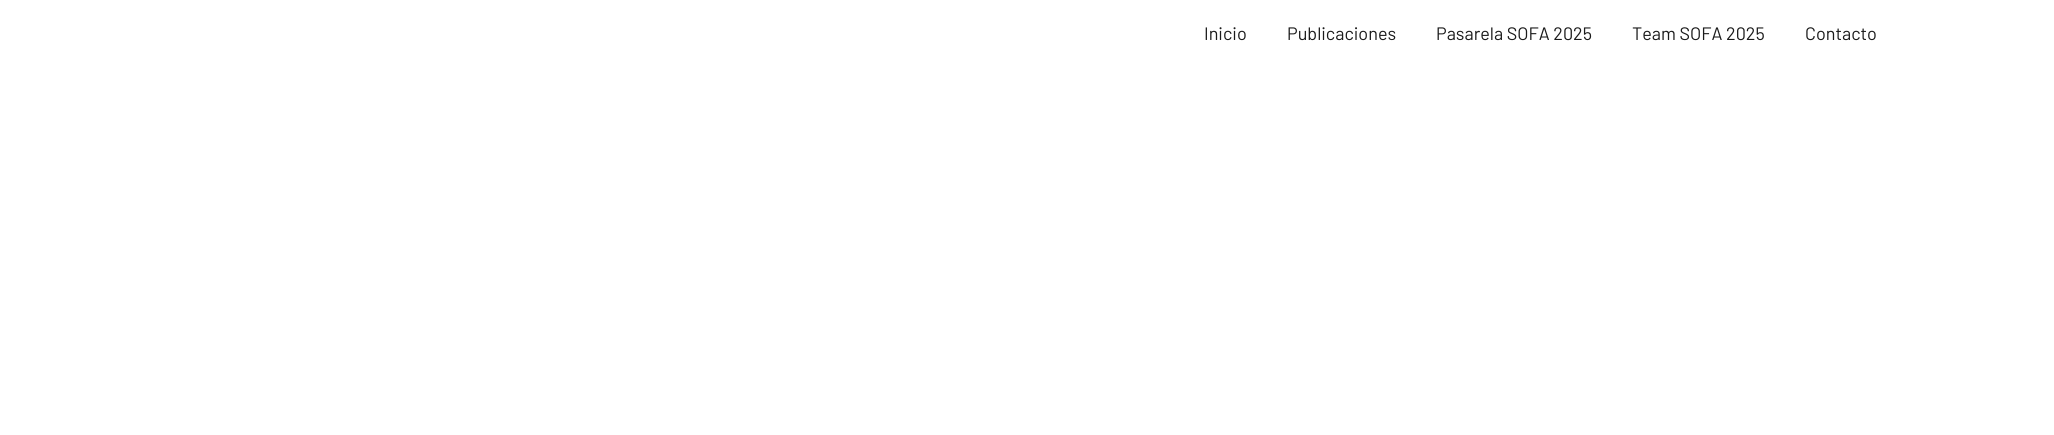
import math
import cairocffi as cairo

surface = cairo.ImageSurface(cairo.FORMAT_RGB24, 2054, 435)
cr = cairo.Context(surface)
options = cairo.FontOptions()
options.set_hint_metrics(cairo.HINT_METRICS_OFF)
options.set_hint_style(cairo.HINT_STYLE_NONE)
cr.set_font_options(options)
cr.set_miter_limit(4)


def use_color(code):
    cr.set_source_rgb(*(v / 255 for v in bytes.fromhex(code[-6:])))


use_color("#ffffff")
cr.paint()
cr.select_font_face("Barlow")
cr.set_font_size(18)
use_color("#1b1b1b")
cr.move_to(1204, 40)
cr.show_text("Inicio")
cr.move_to(1287, 40)
cr.show_text("Publicaciones")
cr.move_to(1436, 40)
cr.show_text("Pasarela SOFA 2025")
cr.move_to(1632, 40)
cr.show_text("Team SOFA 2025")
cr.move_to(1805, 40)
cr.show_text("Contacto")
surface.write_to_png("result.png")
